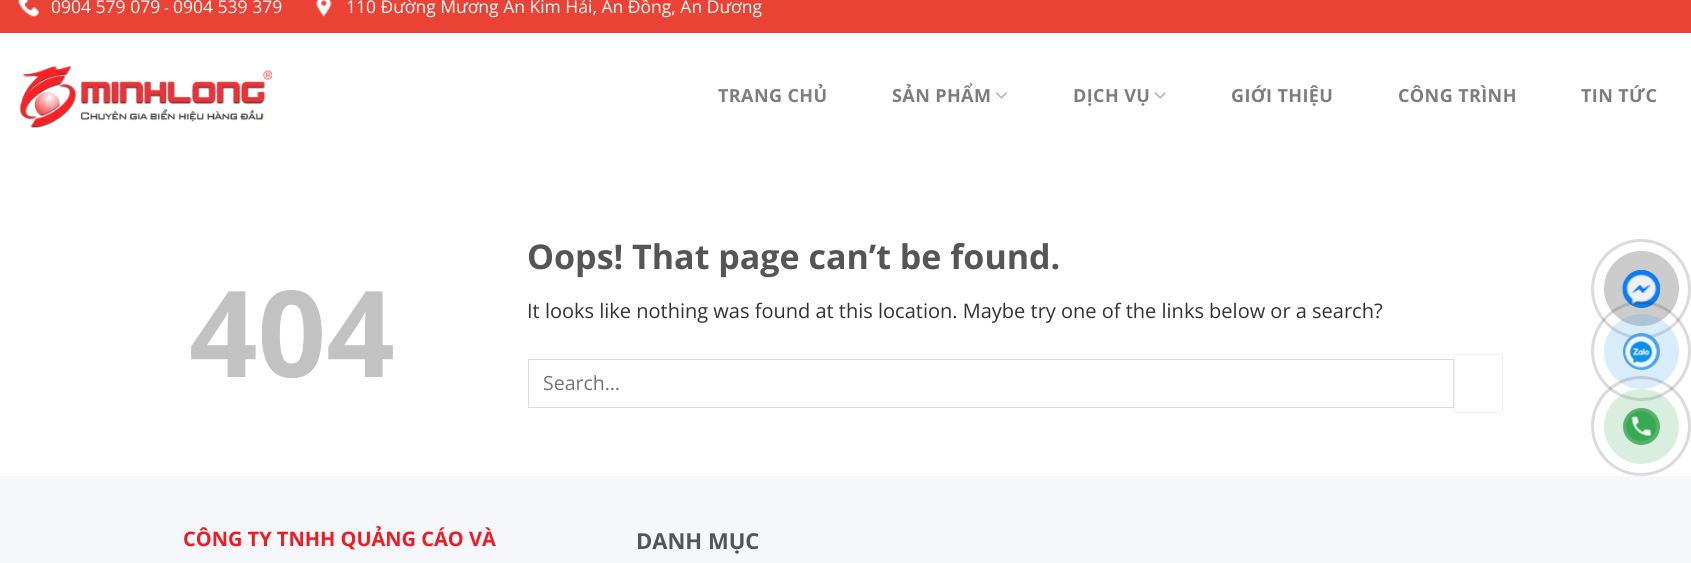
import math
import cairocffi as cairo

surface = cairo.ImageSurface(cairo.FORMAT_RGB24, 1691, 563)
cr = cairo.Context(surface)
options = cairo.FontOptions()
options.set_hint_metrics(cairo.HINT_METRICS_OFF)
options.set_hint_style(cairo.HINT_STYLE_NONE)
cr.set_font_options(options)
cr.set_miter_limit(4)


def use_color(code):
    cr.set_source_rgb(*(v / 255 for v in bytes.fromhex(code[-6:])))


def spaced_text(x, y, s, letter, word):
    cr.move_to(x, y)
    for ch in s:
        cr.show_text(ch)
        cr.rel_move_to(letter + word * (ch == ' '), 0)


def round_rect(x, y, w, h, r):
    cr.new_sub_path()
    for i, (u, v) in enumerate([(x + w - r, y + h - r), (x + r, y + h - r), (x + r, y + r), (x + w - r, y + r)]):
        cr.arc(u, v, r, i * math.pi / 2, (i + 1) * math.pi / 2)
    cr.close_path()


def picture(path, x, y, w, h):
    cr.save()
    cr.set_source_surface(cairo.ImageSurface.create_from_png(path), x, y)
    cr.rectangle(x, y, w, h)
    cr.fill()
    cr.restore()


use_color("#ffffff")
cr.paint()
use_color("#ea4335")
cr.rectangle(0, 0, 1691, 33)
cr.fill()
picture("img1.png", 18, 0, 21, 17)
cr.select_font_face("Open Sans")
cr.set_font_size(17.5)
use_color("#ffffff")
cr.move_to(51, 13)
cr.show_text("0904 579 079")
cr.set_font_size(15)
cr.move_to(164, 13)
cr.show_text("-")
cr.set_font_size(17.5)
cr.move_to(173, 13)
cr.show_text("0904 539 379")
picture("img2.png", 316, 0, 16, 17)
cr.move_to(346, 13)
cr.show_text("110 Đường Mương An Kim Hải, An Đồng, An Dương")
picture("img3.png", 19, 66, 253, 62)
cr.select_font_face("Open Sans", cairo.FONT_SLANT_NORMAL, cairo.FONT_WEIGHT_BOLD)
cr.set_font_size(18)
use_color("#7d7d7d")
spaced_text(718, 102, "TRANG CHỦ", 0.4, 0)
spaced_text(892, 102, "SẢN PHẨM", 0.4, 0)
picture("img4.png", 996, 92, 11, 7)
spaced_text(1073, 102, "DỊCH VỤ", 0.4, 0)
picture("img5.png", 1154, 92, 12, 7)
spaced_text(1231, 102, "GIỚI THIỆU", 0.4, 0)
spaced_text(1398, 102, "CÔNG TRÌNH", 0.4, 0)
spaced_text(1581, 102, "TIN TỨC", 0.4, 0)
cr.set_font_size(120)
use_color("#c2c2c2")
cr.move_to(189, 377)
cr.show_text("404")
cr.set_font_size(34)
use_color("#555555")
cr.move_to(527, 269)
cr.show_text("Oops! That page can’t be found.")
cr.select_font_face("Open Sans")
cr.set_font_size(20)
use_color("#333333")
cr.move_to(527, 318)
cr.show_text("It looks like nothing was found at this location. Maybe try one of the links below or a search?")
cr.rectangle(528.5, 359.5, 925, 48)
use_color("#dddddd")
cr.set_line_width(1)
cr.stroke()
cr.set_font_size(19.5)
use_color("#757575")
cr.move_to(543, 390)
cr.show_text("Search…")
cr.rectangle(1454.5, 354.5, 48, 58)
use_color("#f2f2f2")
cr.stroke()
use_color("#f5f7fb")
cr.rectangle(0, 476, 1691, 87)
cr.fill()
cr.select_font_face("Open Sans", cairo.FONT_SLANT_NORMAL, cairo.FONT_WEIGHT_BOLD)
cr.set_font_size(20)
use_color("#ed1c24")
cr.move_to(183, 546)
cr.show_text("CÔNG TY TNHH QUẢNG CÁO VÀ")
cr.set_font_size(22)
use_color("#555555")
cr.move_to(636, 549)
cr.show_text("DANH MỤC")
cr.new_path()
cr.arc(1641, 289, 48.5, 0, 2 * math.pi)
use_color("#dbdbdb")
cr.set_line_width(3)
cr.stroke()
use_color("#cccccc")
cr.arc(1641.5, 288.5, 37.5, 0, 2 * math.pi)
cr.fill()
use_color("#4a659d")
round_rect(1623, 270, 37, 38, 18.5)
cr.fill()
picture("img6.png", 1622, 270, 39, 38)
cr.arc(1641, 351, 48.5, 0, 2 * math.pi)
cr.set_source_rgba(0.118, 0.118, 0.118, 0.16)
cr.stroke()
cr.set_source_rgba(0.263, 0.631, 0.953, 0.2)
cr.arc(1641.5, 351.5, 37.5, 0, 2 * math.pi)
cr.fill()
cr.set_source_rgba(0.263, 0.631, 0.953, 0.9)
cr.arc(1641.5, 351.5, 18.5, 0, 2 * math.pi)
cr.fill()
picture("img7.png", 1623, 334, 36, 35)
cr.arc(1641, 426, 48.5, 0, 2 * math.pi)
cr.set_source_rgba(0.118, 0.118, 0.118, 0.16)
cr.stroke()
cr.set_source_rgba(0.282, 0.671, 0.373, 0.2)
cr.arc(1641.5, 426.5, 37.5, 0, 2 * math.pi)
cr.fill()
use_color("#57b26c")
cr.arc(1641.5, 426.5, 18.5, 0, 2 * math.pi)
cr.fill()
picture("img8.png", 1625, 410, 32, 32)
surface.write_to_png("result.png")
